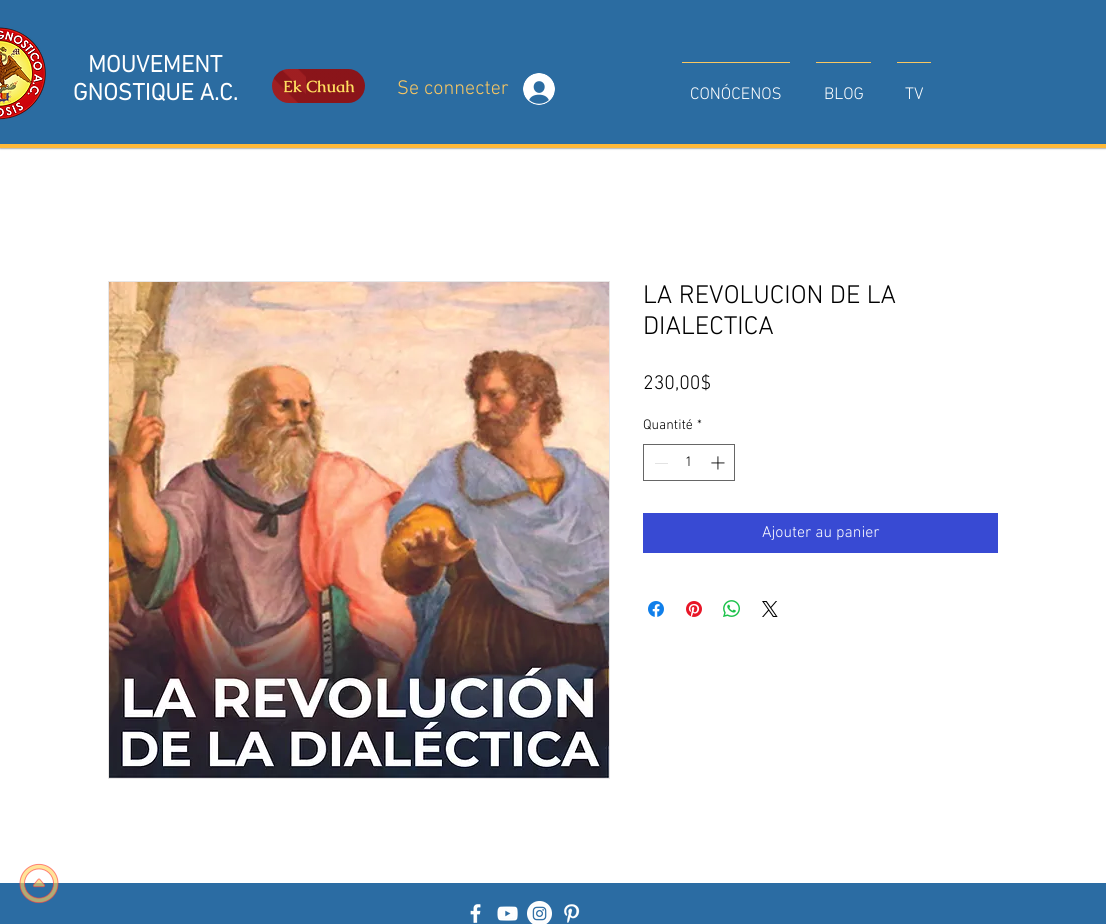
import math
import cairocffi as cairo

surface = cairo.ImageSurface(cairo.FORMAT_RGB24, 1106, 924)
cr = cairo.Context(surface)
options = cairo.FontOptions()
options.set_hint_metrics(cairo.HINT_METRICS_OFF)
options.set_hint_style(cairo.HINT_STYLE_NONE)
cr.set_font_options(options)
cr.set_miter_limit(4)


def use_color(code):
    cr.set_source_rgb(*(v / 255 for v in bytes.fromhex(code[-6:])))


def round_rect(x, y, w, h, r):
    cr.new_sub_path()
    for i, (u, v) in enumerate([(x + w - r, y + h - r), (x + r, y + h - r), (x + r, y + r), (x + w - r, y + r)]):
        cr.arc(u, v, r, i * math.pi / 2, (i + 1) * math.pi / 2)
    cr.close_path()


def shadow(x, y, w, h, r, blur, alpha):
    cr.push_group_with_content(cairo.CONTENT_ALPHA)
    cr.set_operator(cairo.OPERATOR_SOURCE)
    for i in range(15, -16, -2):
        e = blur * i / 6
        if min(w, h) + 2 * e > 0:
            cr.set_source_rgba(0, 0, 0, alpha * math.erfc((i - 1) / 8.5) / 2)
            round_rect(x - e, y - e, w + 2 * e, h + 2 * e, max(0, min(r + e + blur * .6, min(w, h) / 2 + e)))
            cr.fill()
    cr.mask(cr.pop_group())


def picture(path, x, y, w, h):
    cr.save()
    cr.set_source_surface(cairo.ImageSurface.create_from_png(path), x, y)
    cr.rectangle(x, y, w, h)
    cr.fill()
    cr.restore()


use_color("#ffffff")
cr.paint()
use_color("#000000")
shadow(0, 0, 1106, 148, 0, 1, 0.7)
use_color("#2b6ca1")
cr.rectangle(0, 0, 1106, 144)
cr.fill()
use_color("#ffb938")
cr.rectangle(0, 144, 1106, 4)
cr.fill()
picture("img1.png", 0, 27, 46, 93)
cr.select_font_face("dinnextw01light", cairo.FONT_SLANT_NORMAL, cairo.FONT_WEIGHT_BOLD)
cr.set_font_size(24)
use_color("#ffffff")
cr.move_to(88, 72)
cr.show_text("MOUVEMENT")
cr.move_to(73, 100)
cr.show_text("GNOSTIQUE A.C.")
picture("img2.png", 272, 69, 93, 34)
cr.select_font_face("Caudex", cairo.FONT_SLANT_NORMAL, cairo.FONT_WEIGHT_BOLD)
cr.set_font_size(16)
use_color("#ffde5f")
cr.move_to(283, 92)
cr.show_text("Ek Chuah")
cr.select_font_face("dinnextw01light Light")
cr.set_font_size(20)
use_color("#fac761")
cr.move_to(397, 94)
cr.show_text("Se connecter")
picture("img3.png", 523, 73, 32, 32)
cr.rectangle(682, 62, 108, 1)
cr.fill()
cr.set_font_size(17)
use_color("#ffffff")
cr.move_to(690, 99)
cr.show_text("CONÓCENOS")
use_color("#fac761")
cr.rectangle(816, 62, 55, 1)
cr.fill()
use_color("#ffffff")
cr.move_to(824, 99)
cr.show_text("BLOG")
use_color("#fac761")
cr.rectangle(897, 62, 34, 1)
cr.fill()
use_color("#ffffff")
cr.move_to(905, 99)
cr.show_text("TV")
cr.rectangle(108.5, 281.5, 501, 497)
use_color("#e8e6e6")
cr.set_line_width(1)
cr.stroke()
picture("img4.png", 109, 282, 500, 496)
cr.set_font_size(26)
use_color("#000000")
cr.move_to(643, 303)
cr.show_text("LA REVOLUCION DE LA")
cr.move_to(643, 334)
cr.show_text("DIALECTICA")
cr.set_font_size(20)
cr.move_to(643, 389)
cr.show_text("230,00$")
cr.set_font_size(14)
cr.move_to(643, 429)
cr.show_text("Quantité")
cr.move_to(697, 429)
cr.show_text("*")
cr.rectangle(643.5, 444.5, 91, 36)
use_color("#666666")
cr.stroke()
use_color("#e3e3e3")
cr.rectangle(655, 463, 13, 1)
cr.fill()
use_color("#000000")
cr.move_to(685, 466)
cr.show_text("1")
picture("img5.png", 711, 456, 14, 14)
use_color("#384ad3")
cr.rectangle(643, 513, 355, 40)
cr.fill()
cr.set_font_size(16)
use_color("#ffffff")
cr.move_to(762, 537)
cr.show_text("Ajouter au panier")
picture("img6.png", 648, 601, 16, 16)
picture("img7.png", 686, 601, 16, 16)
picture("img8.png", 723, 600, 17, 17)
picture("img9.png", 762, 601, 16, 16)
use_color("#2b6ca3")
cr.rectangle(0, 883, 1106, 41)
cr.fill()
picture("img10.png", 19, 863, 40, 41)
picture("img11.png", 470, 904, 11, 19)
picture("img12.png", 497, 906, 21, 15)
picture("img13.png", 527, 901, 25, 23)
picture("img14.png", 564, 904, 16, 19)
surface.write_to_png("result.png")
